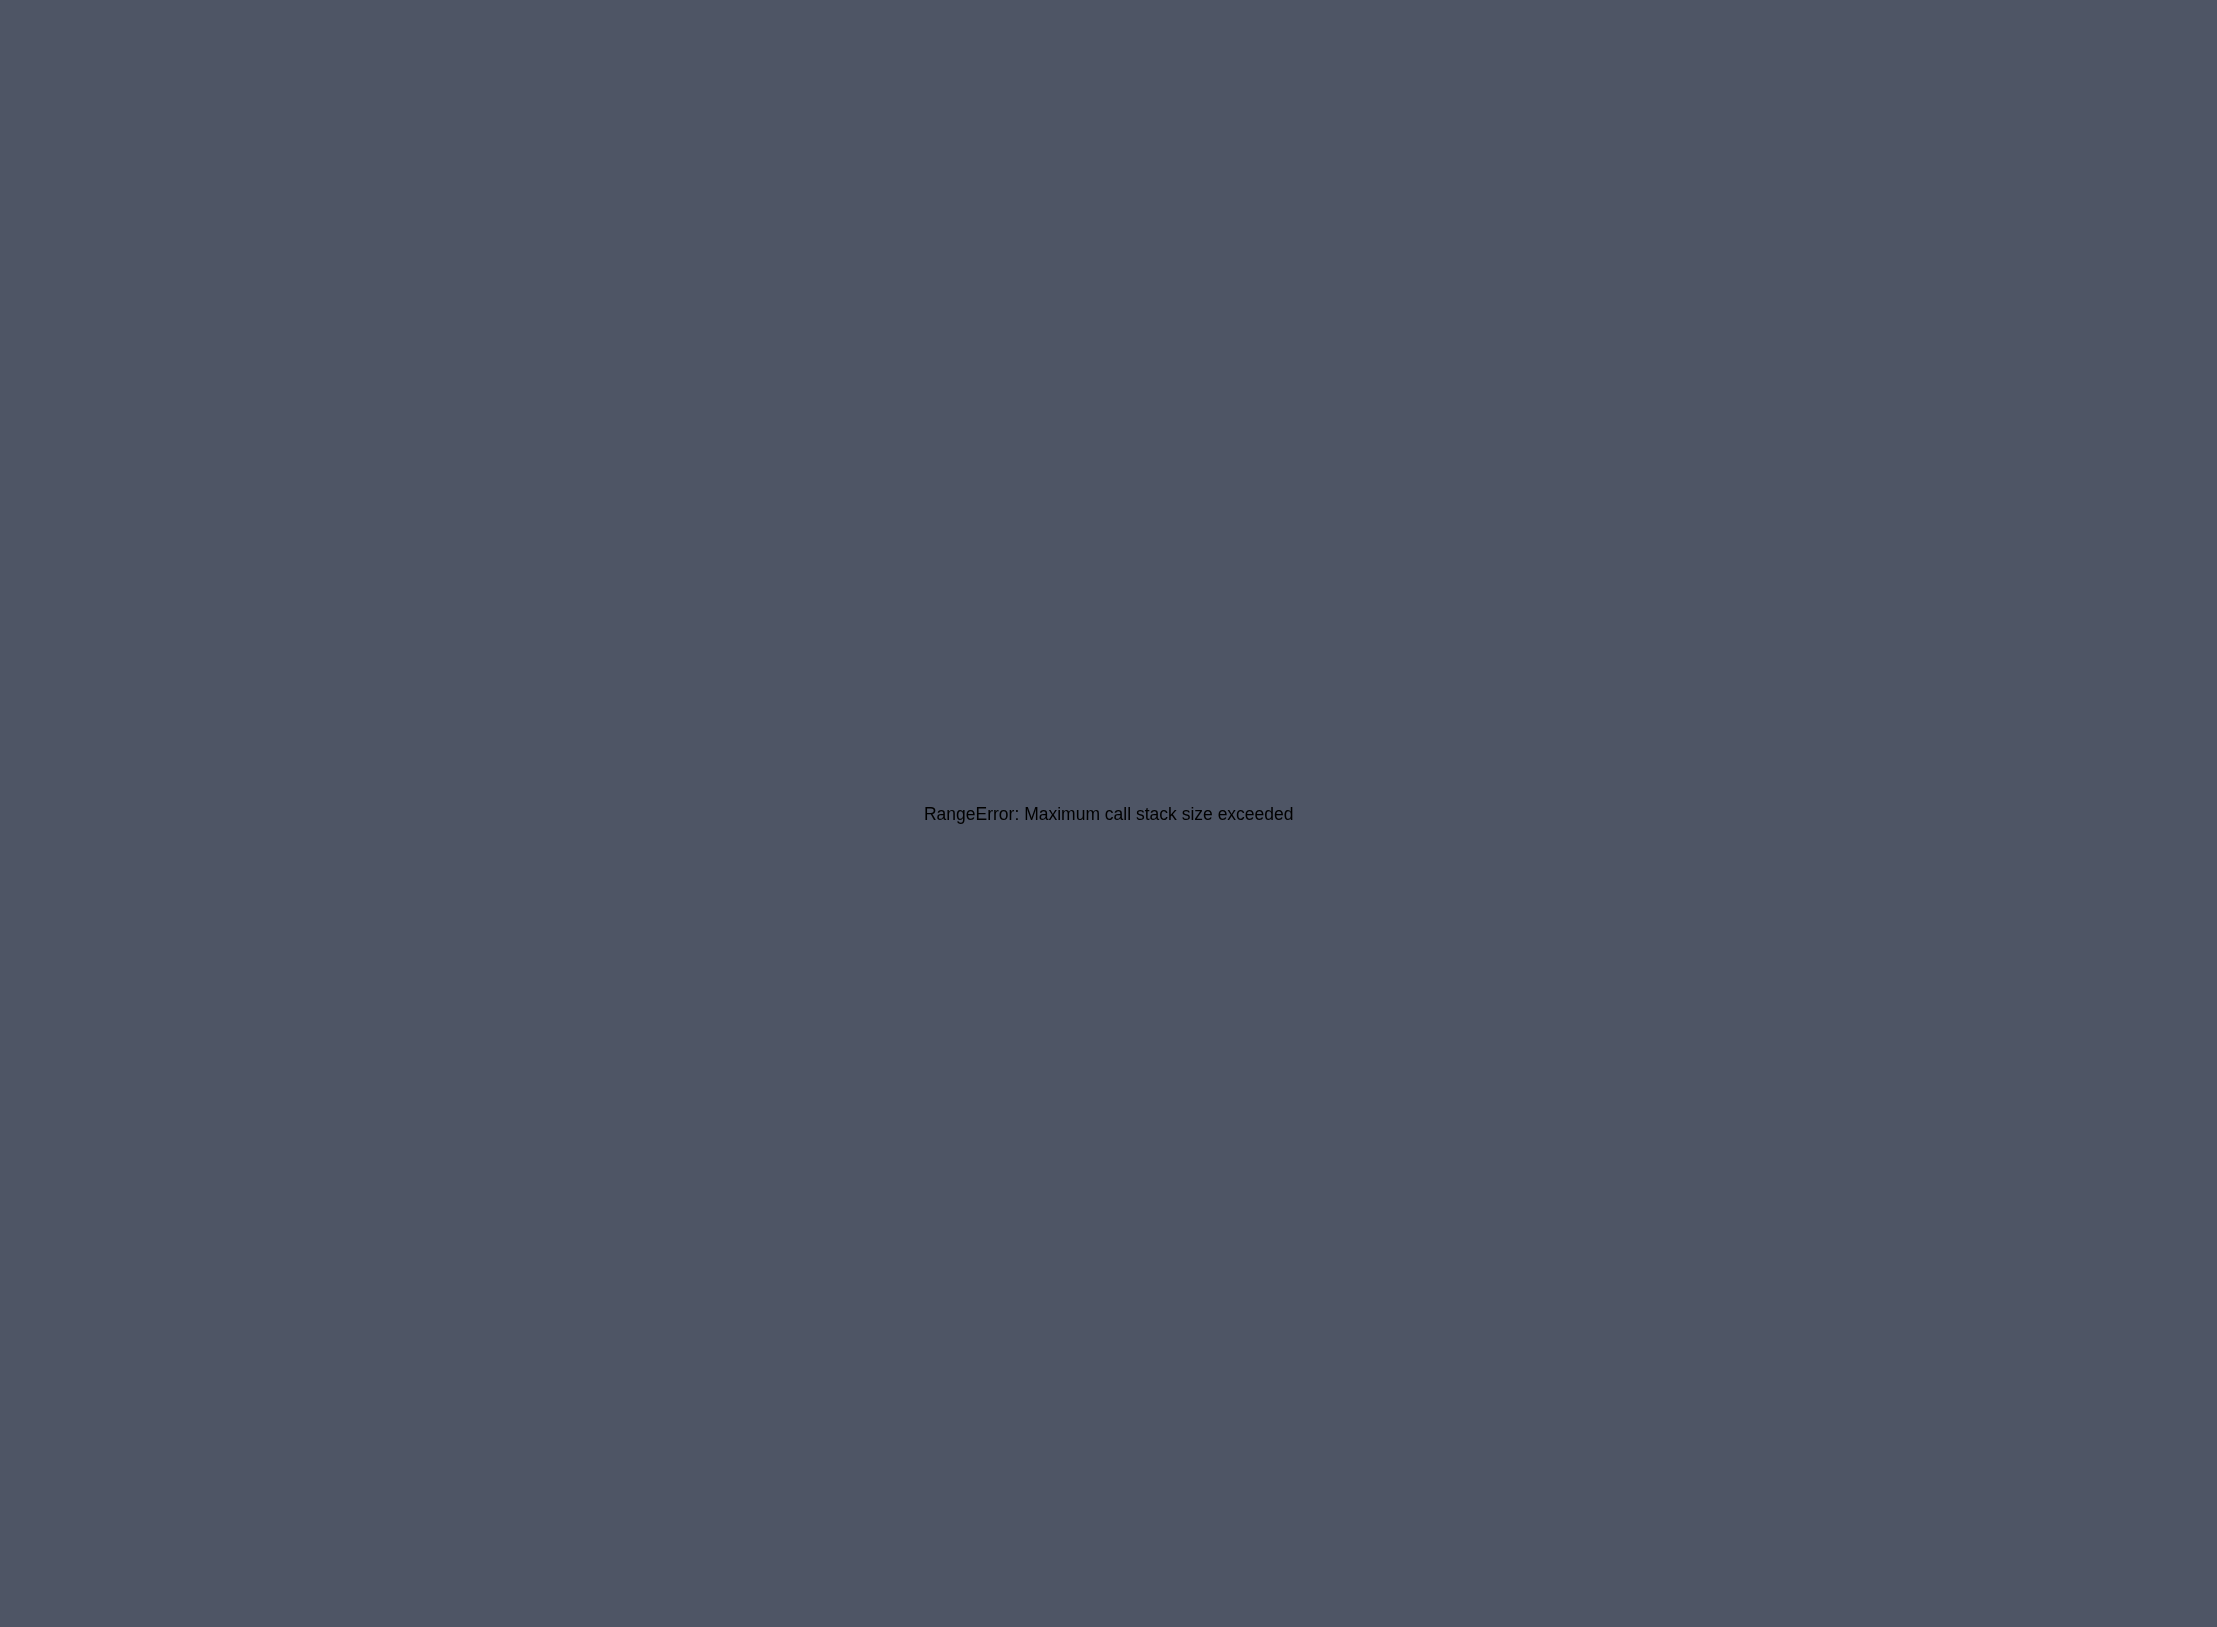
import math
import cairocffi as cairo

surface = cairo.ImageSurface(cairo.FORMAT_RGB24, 2217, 1627)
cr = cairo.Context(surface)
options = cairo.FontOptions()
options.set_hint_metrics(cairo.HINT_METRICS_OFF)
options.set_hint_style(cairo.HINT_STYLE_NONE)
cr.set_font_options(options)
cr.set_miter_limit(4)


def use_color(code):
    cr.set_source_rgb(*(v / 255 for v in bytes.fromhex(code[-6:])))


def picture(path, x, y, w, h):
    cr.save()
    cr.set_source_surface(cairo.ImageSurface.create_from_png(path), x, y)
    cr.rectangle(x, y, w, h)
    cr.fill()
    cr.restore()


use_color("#4e5565")
cr.paint()
picture("img1.png", 925, 807, 368, 17)
surface.write_to_png("result.png")
